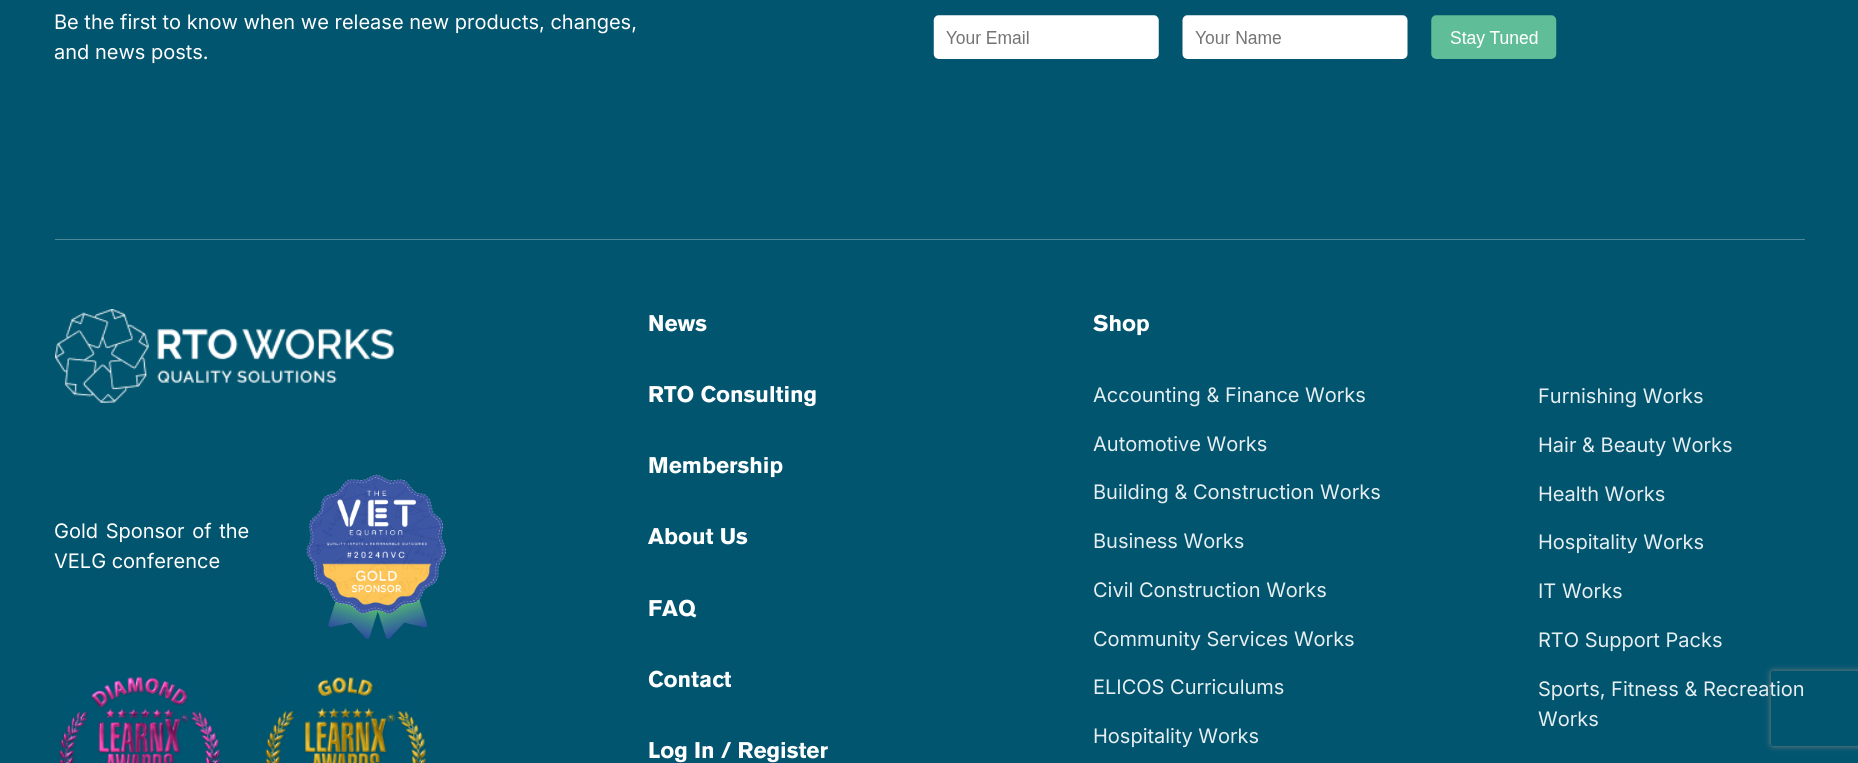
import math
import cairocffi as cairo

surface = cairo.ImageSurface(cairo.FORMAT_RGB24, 1858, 763)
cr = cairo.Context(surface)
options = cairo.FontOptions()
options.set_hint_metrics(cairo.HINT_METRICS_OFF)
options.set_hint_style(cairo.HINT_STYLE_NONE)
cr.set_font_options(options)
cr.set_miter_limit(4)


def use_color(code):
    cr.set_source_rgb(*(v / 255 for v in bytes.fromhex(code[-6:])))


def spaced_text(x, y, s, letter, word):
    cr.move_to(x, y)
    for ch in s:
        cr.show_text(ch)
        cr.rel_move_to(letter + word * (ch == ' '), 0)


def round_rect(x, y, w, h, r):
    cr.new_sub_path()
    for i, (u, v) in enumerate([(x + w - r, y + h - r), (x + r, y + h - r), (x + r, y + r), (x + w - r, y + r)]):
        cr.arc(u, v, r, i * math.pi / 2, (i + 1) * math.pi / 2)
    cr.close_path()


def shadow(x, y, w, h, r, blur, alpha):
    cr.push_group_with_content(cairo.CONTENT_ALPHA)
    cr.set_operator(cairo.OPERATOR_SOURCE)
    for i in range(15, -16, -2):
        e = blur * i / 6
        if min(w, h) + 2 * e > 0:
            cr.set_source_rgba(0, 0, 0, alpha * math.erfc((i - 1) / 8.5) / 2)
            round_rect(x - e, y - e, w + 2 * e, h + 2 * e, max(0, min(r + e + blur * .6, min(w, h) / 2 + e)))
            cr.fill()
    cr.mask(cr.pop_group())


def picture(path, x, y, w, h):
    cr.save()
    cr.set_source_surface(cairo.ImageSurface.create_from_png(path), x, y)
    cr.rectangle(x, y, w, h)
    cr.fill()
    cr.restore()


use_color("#01556f")
cr.paint()
use_color("#4d889a")
cr.rectangle(55, 239, 1750, 1)
cr.fill()
cr.select_font_face("Inter")
cr.set_font_size(20)
use_color("#ffffff")
cr.move_to(54, 29)
cr.show_text("Be the first to know when we release new products, changes,")
cr.move_to(54, 59)
cr.show_text("and news posts.")
picture("img1.png", 933, 15, 624, 44)
picture("img2.png", 55, 309, 339, 94)
spaced_text(54, 538, "Gold Sponsor of the", 0, 2)
cr.move_to(54, 568)
cr.show_text("VELG conference")
picture("img3.png", 306, 474, 140, 165)
picture("img4.png", 59, 676, 161, 87)
picture("img5.png", 265, 677, 161, 86)
cr.select_font_face("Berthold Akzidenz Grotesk", cairo.FONT_SLANT_NORMAL, cairo.FONT_WEIGHT_BOLD)
cr.set_font_size(22.5)
cr.move_to(648, 331)
cr.show_text("News")
cr.move_to(648, 402)
cr.show_text("RTO Consulting")
cr.move_to(648, 473)
cr.show_text("Membership")
cr.move_to(648, 544)
cr.show_text("About Us")
cr.move_to(648, 616)
cr.show_text("FAQ")
cr.move_to(648, 687)
cr.show_text("Contact")
cr.move_to(648, 758)
cr.show_text("Log In / Register")
cr.move_to(1093, 331)
cr.show_text("Shop")
cr.select_font_face("Inter")
cr.set_font_size(20)
use_color("#e6eef1")
cr.move_to(1093, 402)
cr.show_text("Accounting & Finance Works")
cr.move_to(1093, 451)
cr.show_text("Automotive Works")
cr.move_to(1093, 499)
cr.show_text("Building & Construction Works")
cr.move_to(1093, 548)
cr.show_text("Business Works")
cr.move_to(1093, 597)
cr.show_text("Civil Construction Works")
cr.move_to(1093, 646)
cr.show_text("Community Services Works")
cr.move_to(1093, 694)
cr.show_text("ELICOS Curriculums")
cr.move_to(1093, 743)
cr.show_text("Hospitality Works")
cr.move_to(1538, 403)
cr.show_text("Furnishing Works")
cr.move_to(1538, 452)
cr.show_text("Hair & Beauty Works")
cr.move_to(1538, 501)
cr.show_text("Health Works")
cr.move_to(1538, 549)
cr.show_text("Hospitality Works")
cr.move_to(1538, 598)
cr.show_text("IT Works")
cr.move_to(1538, 647)
cr.show_text("RTO Support Packs")
cr.move_to(1538, 696)
cr.show_text("Sports, Fitness & Recreation")
cr.move_to(1538, 726)
cr.show_text("Works")
cr.save()
cr.set_fill_rule(cairo.FILL_RULE_EVEN_ODD)
cr.new_path()
cr.move_to(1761, 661)
cr.line_to(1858, 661)
cr.line_to(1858, 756)
cr.line_to(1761, 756)
cr.close_path()
cr.move_to(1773.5, 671)
cr.line_to(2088.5, 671)
cr.curve_to(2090, 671, 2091, 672, 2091, 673.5)
cr.line_to(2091, 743.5)
cr.curve_to(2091, 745, 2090, 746, 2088.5, 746)
cr.line_to(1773.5, 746)
cr.curve_to(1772, 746, 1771, 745, 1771, 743.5)
cr.line_to(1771, 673.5)
cr.curve_to(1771, 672, 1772, 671, 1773.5, 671)
cr.close_path()
cr.clip()
use_color("#808080")
shadow(1771, 671, 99, 75, 2.5, 3, 1)
cr.restore()
surface.write_to_png("result.png")
